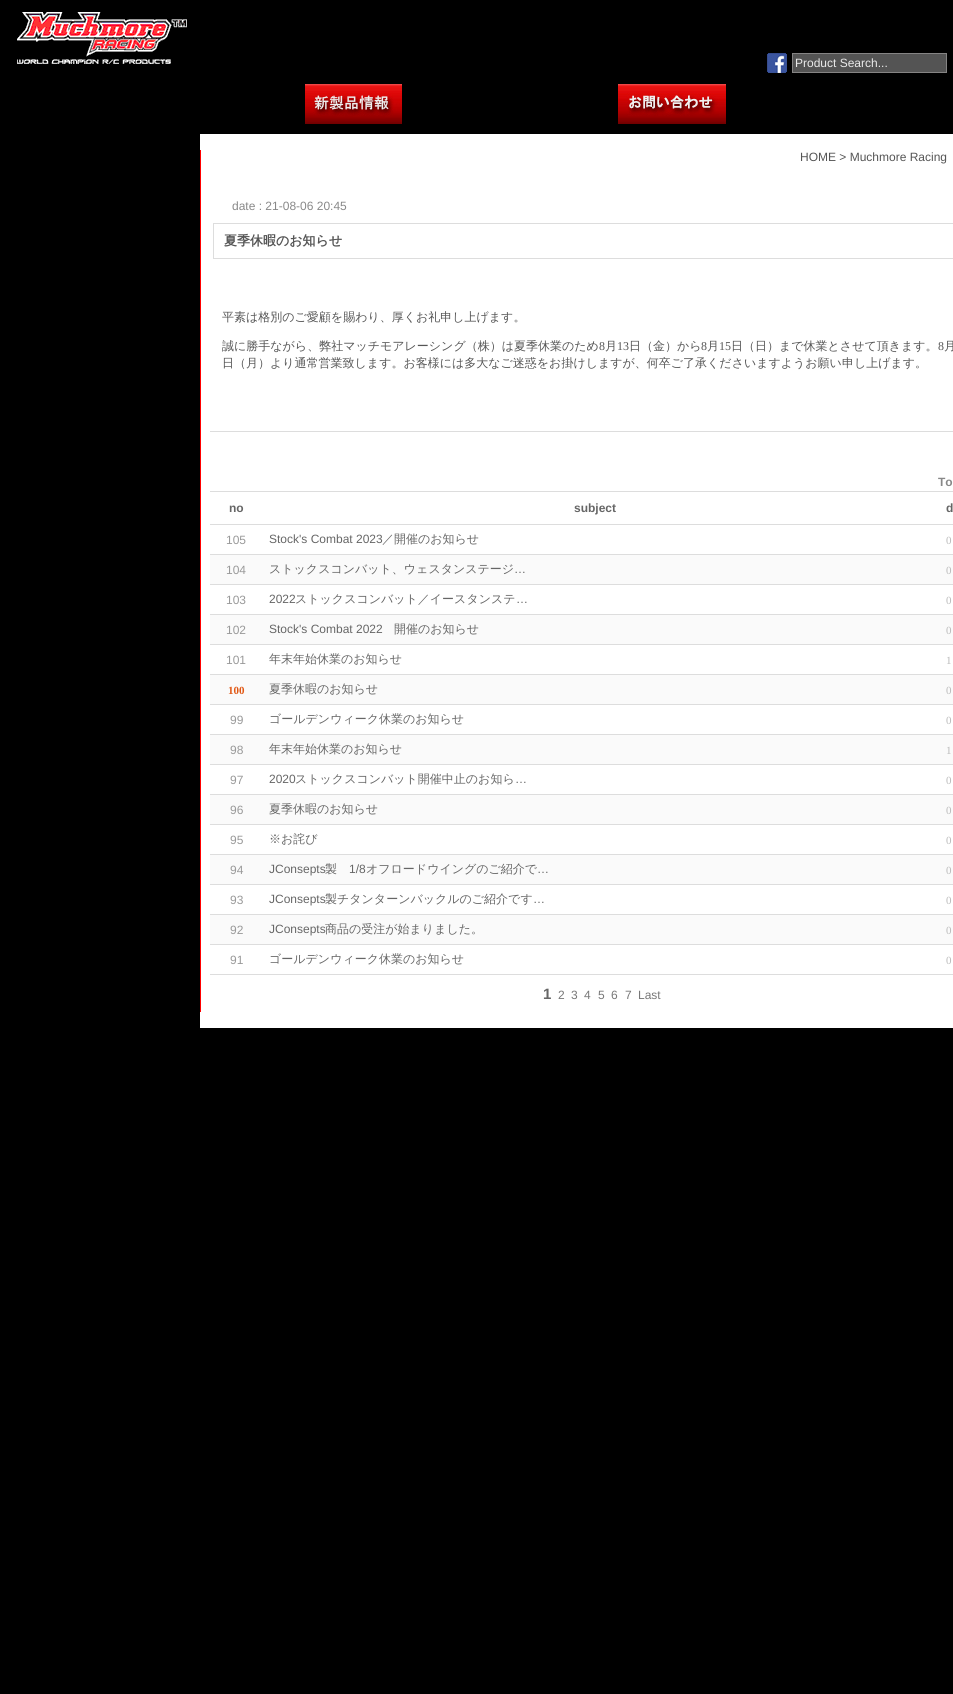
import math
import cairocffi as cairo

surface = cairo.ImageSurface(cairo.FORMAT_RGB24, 953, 1694)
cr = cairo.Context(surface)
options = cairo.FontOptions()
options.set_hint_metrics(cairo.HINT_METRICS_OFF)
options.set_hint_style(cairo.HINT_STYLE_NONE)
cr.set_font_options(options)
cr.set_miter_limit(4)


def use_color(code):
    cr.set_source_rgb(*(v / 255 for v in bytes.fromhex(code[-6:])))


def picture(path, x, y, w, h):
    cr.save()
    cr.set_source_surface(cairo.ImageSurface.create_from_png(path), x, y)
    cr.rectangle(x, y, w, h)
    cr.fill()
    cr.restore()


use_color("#000000")
cr.paint()
picture("img1.png", 17, 12, 170, 52)
picture("img2.png", 767, 53, 20, 20)
use_color("#545454")
cr.rectangle(792.5, 53.5, 154, 19)
cr.fill_preserve()
use_color("#858484")
cr.set_line_width(1)
cr.stroke()
cr.select_font_face("Liberation Sans")
cr.set_font_size(12)
use_color("#eaeaea")
cr.move_to(795, 67)
cr.show_text("Product Search...")
picture("img3.png", 305, 84, 97, 40)
picture("img4.png", 618, 84, 108, 40)
use_color("#ffffff")
cr.rectangle(200, 134, 753, 894)
cr.fill()
use_color("#fe0000")
cr.rectangle(200, 150, 1, 862)
cr.fill()
use_color("#555555")
cr.move_to(800, 161)
cr.show_text("HOME > Muchmore Racing")
use_color("#888888")
cr.move_to(232, 210)
cr.show_text("date : 21-08-06 20:45")
cr.rectangle(213.5, 223.5, 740, 35)
use_color("#dddddd")
cr.stroke()
cr.select_font_face("WenQuanYi Zen Hei", cairo.FONT_SLANT_NORMAL, cairo.FONT_WEIGHT_BOLD)
cr.set_font_size(13)
use_color("#555555")
cr.move_to(224, 245)
cr.show_text("夏季休暇のお知らせ")
cr.select_font_face("WenQuanYi Zen Hei Medium")
cr.set_font_size(12)
cr.move_to(222, 321)
cr.show_text("平素は格別のご愛顧を賜わり、厚くお礼申し上げます。")
cr.move_to(222, 350)
cr.show_text("誠に勝手ながら、弊社マッチモアレーシング（株）は夏季休業のため")
cr.select_font_face("Liberation Serif")
cr.move_to(599, 350)
cr.show_text("8")
cr.select_font_face("WenQuanYi Zen Hei Medium")
cr.move_to(605, 350)
cr.show_text("月")
cr.select_font_face("Liberation Serif")
cr.move_to(617, 350)
cr.show_text("13")
cr.select_font_face("WenQuanYi Zen Hei Medium")
cr.move_to(629, 350)
cr.show_text("日（金）から")
cr.select_font_face("Liberation Serif")
cr.move_to(701, 350)
cr.show_text("8")
cr.select_font_face("WenQuanYi Zen Hei Medium")
cr.move_to(707, 350)
cr.show_text("月")
cr.select_font_face("Liberation Serif")
cr.move_to(719, 350)
cr.show_text("15")
cr.select_font_face("WenQuanYi Zen Hei Medium")
cr.move_to(731, 350)
cr.show_text("日（日）まで休業とさせて頂きます。")
cr.select_font_face("Liberation Serif")
cr.move_to(938, 350)
cr.show_text("8")
cr.select_font_face("WenQuanYi Zen Hei Medium")
cr.move_to(944, 350)
cr.show_text("月")
cr.move_to(222, 367)
cr.show_text("日（月）より通常営業致します。お客様には多大なご迷惑をお掛けしますが、何卒ご了承くださいますようお願い申し上げます。")
use_color("#dddddd")
cr.rectangle(210, 431, 743, 1)
cr.fill()
cr.select_font_face("Liberation Sans", cairo.FONT_SLANT_NORMAL, cairo.FONT_WEIGHT_BOLD)
use_color("#888888")
cr.move_to(938, 486)
cr.show_text("To")
use_color("#dddddd")
cr.rectangle(210, 491, 743, 1)
cr.fill()
cr.rectangle(210, 524, 743, 1)
cr.fill()
use_color("#666666")
cr.move_to(229, 512)
cr.show_text("no")
cr.move_to(574, 512)
cr.show_text("subject")
cr.move_to(946, 512)
cr.show_text("d")
use_color("#dddddd")
cr.rectangle(210, 554, 53, 1)
cr.fill()
cr.select_font_face("Liberation Sans")
use_color("#999999")
cr.move_to(226, 544)
cr.show_text("105")
use_color("#666666")
cr.move_to(269, 543)
cr.show_text("Stock's Combat 2023")
cr.select_font_face("WenQuanYi Zen Hei Medium")
cr.move_to(382, 543)
cr.show_text("／開催のお知らせ")
use_color("#dddddd")
cr.rectangle(263, 554, 690, 1)
cr.fill()
cr.select_font_face("Liberation Serif")
cr.set_font_size(11)
use_color("#bababa")
cr.move_to(946, 544)
cr.show_text("0")
use_color("#fafafa")
cr.rectangle(210, 555, 743, 29)
cr.fill()
use_color("#dddddd")
cr.rectangle(210, 584, 53, 1)
cr.fill()
cr.select_font_face("Liberation Sans")
cr.set_font_size(12)
use_color("#999999")
cr.move_to(226, 574)
cr.show_text("104")
cr.select_font_face("WenQuanYi Zen Hei Medium")
use_color("#666666")
cr.move_to(269, 573)
cr.show_text("ストックスコンバット、ウェスタンステージ")
cr.select_font_face("Liberation Sans")
cr.move_to(514, 573)
cr.show_text("…")
use_color("#dddddd")
cr.rectangle(263, 584, 690, 1)
cr.fill()
cr.select_font_face("Liberation Serif")
cr.set_font_size(11)
use_color("#bababa")
cr.move_to(946, 574)
cr.show_text("0")
use_color("#dddddd")
cr.rectangle(210, 614, 53, 1)
cr.fill()
cr.select_font_face("Liberation Sans")
cr.set_font_size(12)
use_color("#999999")
cr.move_to(226, 604)
cr.show_text("103")
use_color("#666666")
cr.move_to(269, 603)
cr.show_text("2022")
cr.select_font_face("WenQuanYi Zen Hei Medium")
cr.move_to(295, 603)
cr.show_text("ストックスコンバット／イースタンステ")
cr.select_font_face("Liberation Sans")
cr.move_to(516, 603)
cr.show_text("…")
use_color("#dddddd")
cr.rectangle(263, 614, 690, 1)
cr.fill()
cr.select_font_face("Liberation Serif")
cr.set_font_size(11)
use_color("#bababa")
cr.move_to(946, 604)
cr.show_text("0")
use_color("#fafafa")
cr.rectangle(210, 615, 743, 29)
cr.fill()
use_color("#dddddd")
cr.rectangle(210, 644, 53, 1)
cr.fill()
cr.select_font_face("Liberation Sans")
cr.set_font_size(12)
use_color("#999999")
cr.move_to(226, 634)
cr.show_text("102")
use_color("#666666")
cr.move_to(269, 633)
cr.show_text("Stock's Combat 2022")
cr.select_font_face("WenQuanYi Zen Hei Medium")
cr.move_to(394, 633)
cr.show_text("開催のお知らせ")
use_color("#dddddd")
cr.rectangle(263, 644, 690, 1)
cr.fill()
cr.select_font_face("Liberation Serif")
cr.set_font_size(11)
use_color("#bababa")
cr.move_to(946, 634)
cr.show_text("0")
use_color("#dddddd")
cr.rectangle(210, 674, 53, 1)
cr.fill()
cr.select_font_face("Liberation Sans")
cr.set_font_size(12)
use_color("#999999")
cr.move_to(226, 664)
cr.show_text("101")
cr.select_font_face("WenQuanYi Zen Hei Medium")
use_color("#666666")
cr.move_to(269, 663)
cr.show_text("年末年始休業のお知らせ")
use_color("#dddddd")
cr.rectangle(263, 674, 690, 1)
cr.fill()
cr.select_font_face("Liberation Serif")
cr.set_font_size(11)
use_color("#bababa")
cr.move_to(946, 664)
cr.show_text("1")
use_color("#fafafa")
cr.rectangle(210, 675, 743, 29)
cr.fill()
use_color("#dddddd")
cr.rectangle(210, 704, 53, 1)
cr.fill()
cr.select_font_face("Liberation Serif", cairo.FONT_SLANT_NORMAL, cairo.FONT_WEIGHT_BOLD)
use_color("#e15916")
cr.move_to(228, 694)
cr.show_text("100")
cr.select_font_face("WenQuanYi Zen Hei Medium")
cr.set_font_size(12)
use_color("#666666")
cr.move_to(269, 693)
cr.show_text("夏季休暇のお知らせ")
use_color("#dddddd")
cr.rectangle(263, 704, 690, 1)
cr.fill()
cr.select_font_face("Liberation Serif")
cr.set_font_size(11)
use_color("#bababa")
cr.move_to(946, 694)
cr.show_text("0")
use_color("#dddddd")
cr.rectangle(210, 734, 53, 1)
cr.fill()
cr.select_font_face("Liberation Sans")
cr.set_font_size(12)
use_color("#999999")
cr.move_to(230, 724)
cr.show_text("99")
cr.select_font_face("WenQuanYi Zen Hei Medium")
use_color("#666666")
cr.move_to(269, 723)
cr.show_text("ゴールデンウィーク休業のお知らせ")
use_color("#dddddd")
cr.rectangle(263, 734, 690, 1)
cr.fill()
cr.select_font_face("Liberation Serif")
cr.set_font_size(11)
use_color("#bababa")
cr.move_to(946, 724)
cr.show_text("0")
use_color("#fafafa")
cr.rectangle(210, 735, 743, 29)
cr.fill()
use_color("#dddddd")
cr.rectangle(210, 764, 53, 1)
cr.fill()
cr.select_font_face("Liberation Sans")
cr.set_font_size(12)
use_color("#999999")
cr.move_to(230, 754)
cr.show_text("98")
cr.select_font_face("WenQuanYi Zen Hei Medium")
use_color("#666666")
cr.move_to(269, 753)
cr.show_text("年末年始休業のお知らせ")
use_color("#dddddd")
cr.rectangle(263, 764, 690, 1)
cr.fill()
cr.select_font_face("Liberation Serif")
cr.set_font_size(11)
use_color("#bababa")
cr.move_to(946, 754)
cr.show_text("1")
use_color("#dddddd")
cr.rectangle(210, 794, 53, 1)
cr.fill()
cr.select_font_face("Liberation Sans")
cr.set_font_size(12)
use_color("#999999")
cr.move_to(230, 784)
cr.show_text("97")
use_color("#666666")
cr.move_to(269, 783)
cr.show_text("2020")
cr.select_font_face("WenQuanYi Zen Hei Medium")
cr.move_to(295, 783)
cr.show_text("ストックスコンバット開催中止のお知ら")
cr.select_font_face("Liberation Sans")
cr.move_to(515, 783)
cr.show_text("…")
use_color("#dddddd")
cr.rectangle(263, 794, 690, 1)
cr.fill()
cr.select_font_face("Liberation Serif")
cr.set_font_size(11)
use_color("#bababa")
cr.move_to(946, 784)
cr.show_text("0")
use_color("#fafafa")
cr.rectangle(210, 795, 743, 29)
cr.fill()
use_color("#dddddd")
cr.rectangle(210, 824, 53, 1)
cr.fill()
cr.select_font_face("Liberation Sans")
cr.set_font_size(12)
use_color("#999999")
cr.move_to(230, 814)
cr.show_text("96")
cr.select_font_face("WenQuanYi Zen Hei Medium")
use_color("#666666")
cr.move_to(269, 813)
cr.show_text("夏季休暇のお知らせ")
use_color("#dddddd")
cr.rectangle(263, 824, 690, 1)
cr.fill()
cr.select_font_face("Liberation Serif")
cr.set_font_size(11)
use_color("#bababa")
cr.move_to(946, 814)
cr.show_text("0")
use_color("#dddddd")
cr.rectangle(210, 854, 53, 1)
cr.fill()
cr.select_font_face("Liberation Sans")
cr.set_font_size(12)
use_color("#999999")
cr.move_to(230, 844)
cr.show_text("95")
cr.select_font_face("WenQuanYi Zen Hei Medium")
use_color("#666666")
cr.move_to(269, 843)
cr.show_text("※お詫び")
use_color("#dddddd")
cr.rectangle(263, 854, 690, 1)
cr.fill()
cr.select_font_face("Liberation Serif")
cr.set_font_size(11)
use_color("#bababa")
cr.move_to(946, 844)
cr.show_text("0")
use_color("#fafafa")
cr.rectangle(210, 855, 743, 29)
cr.fill()
use_color("#dddddd")
cr.rectangle(210, 884, 53, 1)
cr.fill()
cr.select_font_face("Liberation Sans")
cr.set_font_size(12)
use_color("#999999")
cr.move_to(230, 874)
cr.show_text("94")
use_color("#666666")
cr.move_to(269, 873)
cr.show_text("JConsepts")
cr.select_font_face("WenQuanYi Zen Hei Medium")
cr.move_to(325, 873)
cr.show_text("製")
cr.select_font_face("Liberation Sans")
cr.move_to(349, 873)
cr.show_text("1/8")
cr.select_font_face("WenQuanYi Zen Hei Medium")
cr.move_to(366, 873)
cr.show_text("オフロードウイングのご紹介で")
cr.select_font_face("Liberation Sans")
cr.move_to(537, 873)
cr.show_text("…")
use_color("#dddddd")
cr.rectangle(263, 884, 690, 1)
cr.fill()
cr.select_font_face("Liberation Serif")
cr.set_font_size(11)
use_color("#bababa")
cr.move_to(946, 874)
cr.show_text("0")
use_color("#dddddd")
cr.rectangle(210, 914, 53, 1)
cr.fill()
cr.select_font_face("Liberation Sans")
cr.set_font_size(12)
use_color("#999999")
cr.move_to(230, 904)
cr.show_text("93")
use_color("#666666")
cr.move_to(269, 903)
cr.show_text("JConsepts")
cr.select_font_face("WenQuanYi Zen Hei Medium")
cr.move_to(325, 903)
cr.show_text("製チタンターンバックルのご紹介です")
cr.select_font_face("Liberation Sans")
cr.move_to(533, 903)
cr.show_text("…")
use_color("#dddddd")
cr.rectangle(263, 914, 690, 1)
cr.fill()
cr.select_font_face("Liberation Serif")
cr.set_font_size(11)
use_color("#bababa")
cr.move_to(946, 904)
cr.show_text("0")
use_color("#fafafa")
cr.rectangle(210, 915, 743, 29)
cr.fill()
use_color("#dddddd")
cr.rectangle(210, 944, 53, 1)
cr.fill()
cr.select_font_face("Liberation Sans")
cr.set_font_size(12)
use_color("#999999")
cr.move_to(230, 934)
cr.show_text("92")
use_color("#666666")
cr.move_to(269, 933)
cr.show_text("JConsepts")
cr.select_font_face("WenQuanYi Zen Hei Medium")
cr.move_to(325, 933)
cr.show_text("商品の受注が始まりました。")
use_color("#dddddd")
cr.rectangle(263, 944, 690, 1)
cr.fill()
cr.select_font_face("Liberation Serif")
cr.set_font_size(11)
use_color("#bababa")
cr.move_to(946, 934)
cr.show_text("0")
use_color("#dddddd")
cr.rectangle(210, 974, 53, 1)
cr.fill()
cr.select_font_face("Liberation Sans")
cr.set_font_size(12)
use_color("#999999")
cr.move_to(230, 964)
cr.show_text("91")
cr.select_font_face("WenQuanYi Zen Hei Medium")
use_color("#666666")
cr.move_to(269, 963)
cr.show_text("ゴールデンウィーク休業のお知らせ")
use_color("#dddddd")
cr.rectangle(263, 974, 690, 1)
cr.fill()
cr.select_font_face("Liberation Serif")
cr.set_font_size(11)
use_color("#bababa")
cr.move_to(946, 964)
cr.show_text("0")
cr.select_font_face("Liberation Sans", cairo.FONT_SLANT_NORMAL, cairo.FONT_WEIGHT_BOLD)
cr.set_font_size(15)
use_color("#666666")
cr.move_to(543, 999)
cr.show_text("1")
cr.select_font_face("Liberation Sans")
cr.set_font_size(12)
use_color("#777777")
cr.move_to(558, 999)
cr.show_text("2")
cr.move_to(571, 999)
cr.show_text("3")
cr.move_to(584, 999)
cr.show_text("4")
cr.move_to(598, 999)
cr.show_text("5")
cr.move_to(611, 999)
cr.show_text("6")
cr.move_to(625, 999)
cr.show_text("7")
cr.move_to(638, 999)
cr.show_text("Last")
surface.write_to_png("result.png")
